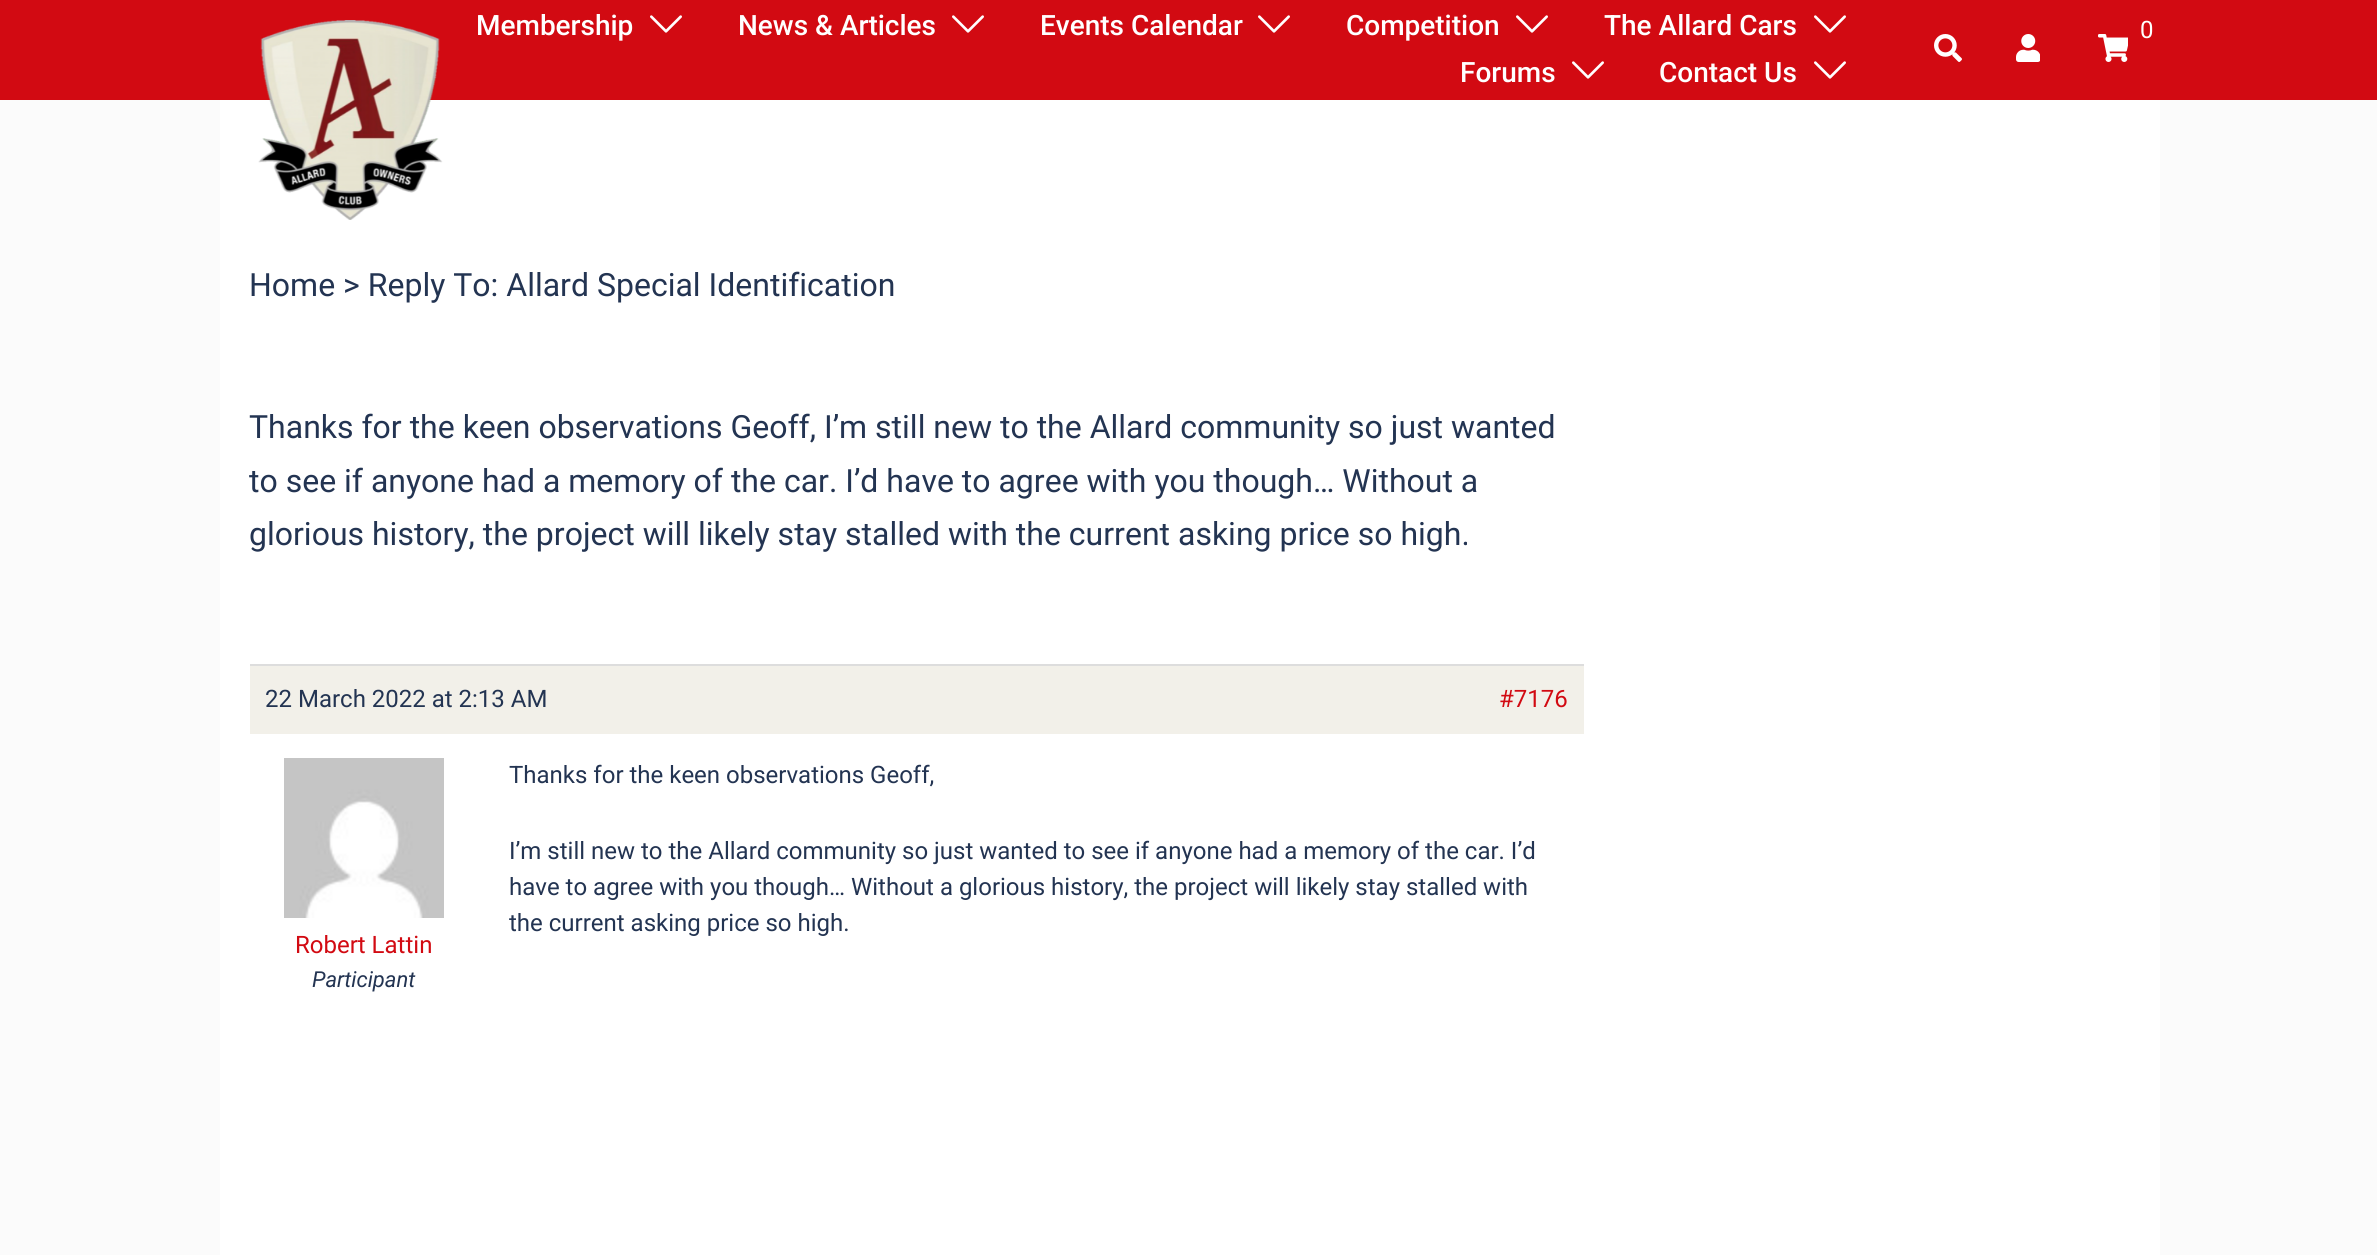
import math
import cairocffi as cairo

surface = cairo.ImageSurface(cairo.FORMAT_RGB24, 2377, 1255)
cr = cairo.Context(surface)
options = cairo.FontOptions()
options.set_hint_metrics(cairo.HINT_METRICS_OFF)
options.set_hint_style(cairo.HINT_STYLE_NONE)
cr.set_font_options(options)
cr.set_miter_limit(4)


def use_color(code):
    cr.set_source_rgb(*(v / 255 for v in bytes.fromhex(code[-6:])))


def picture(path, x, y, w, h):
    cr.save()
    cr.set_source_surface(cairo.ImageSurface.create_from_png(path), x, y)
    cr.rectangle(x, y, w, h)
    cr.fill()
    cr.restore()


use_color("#fbfbfb")
cr.paint()
use_color("#d20a12")
cr.rectangle(0, 0, 2377, 100)
cr.fill()
use_color("#ffffff")
cr.rectangle(220, 100, 1940, 1155)
cr.fill()
picture("img1.png", 258, 20, 185, 200)
cr.select_font_face("Roboto Medium")
cr.set_font_size(28)
cr.move_to(476, 35)
cr.show_text("Membership")
picture("img2.png", 650, 15, 32, 18)
cr.move_to(738, 35)
cr.show_text("News & Articles")
picture("img2.png", 952, 15, 32, 18)
cr.move_to(1040, 35)
cr.show_text("Events Calendar")
picture("img2.png", 1258, 15, 32, 18)
cr.move_to(1346, 35)
cr.show_text("Competition")
picture("img2.png", 1516, 15, 32, 18)
cr.move_to(1604, 35)
cr.show_text("The Allard Cars")
picture("img2.png", 1814, 15, 32, 18)
cr.move_to(1460, 82)
cr.show_text("Forums")
picture("img2.png", 1572, 61, 32, 18)
cr.move_to(1659, 82)
cr.show_text("Contact Us")
picture("img2.png", 1814, 61, 32, 18)
cr.select_font_face("Roboto")
cr.set_font_size(24)
cr.move_to(2140, 38)
cr.show_text("0")
picture("img3.png", 2098, 34, 30, 28)
picture("img4.png", 2016, 34, 24, 28)
picture("img5.png", 1934, 34, 28, 28)
cr.set_font_size(32)
use_color("#233452")
cr.move_to(249, 296)
cr.show_text("Home > Reply To: Allard Special Identification")
cr.move_to(249, 438)
cr.show_text("Thanks for the keen observations Geoff, I’m still new to the Allard community so just wanted")
cr.move_to(249, 492)
cr.show_text("to see if anyone had a memory of the car. I’d have to agree with you though… Without a")
cr.move_to(249, 545)
cr.show_text("glorious history, the project will likely stay stalled with the current asking price so high.")
use_color("#f2f0e9")
cr.rectangle(250, 666, 1334, 68)
cr.fill()
use_color("#dddddd")
cr.rectangle(250, 664, 1334, 2)
cr.fill()
cr.set_font_size(24)
use_color("#233452")
cr.move_to(265, 707)
cr.show_text("22 March 2022 at 2:13 AM")
use_color("#d20a12")
cr.move_to(1499, 707)
cr.show_text("#7176")
use_color("#233452")
cr.move_to(509, 783)
cr.show_text("Thanks for the keen observations Geoff,")
cr.move_to(509, 859)
cr.show_text("I’m still new to the Allard community so just wanted to see if anyone had a memory of the car. I’d")
cr.move_to(509, 895)
cr.show_text("have to agree with you though… Without a glorious history, the project will likely stay stalled with")
cr.move_to(509, 931)
cr.show_text("the current asking price so high.")
picture("img6.png", 284, 758, 160, 160)
use_color("#d20a12")
cr.move_to(295, 953)
cr.show_text("Robert Lattin")
cr.select_font_face("Roboto", cairo.FONT_SLANT_ITALIC)
cr.set_font_size(22)
use_color("#233452")
cr.move_to(312, 987)
cr.show_text("Participant")
surface.write_to_png("result.png")
